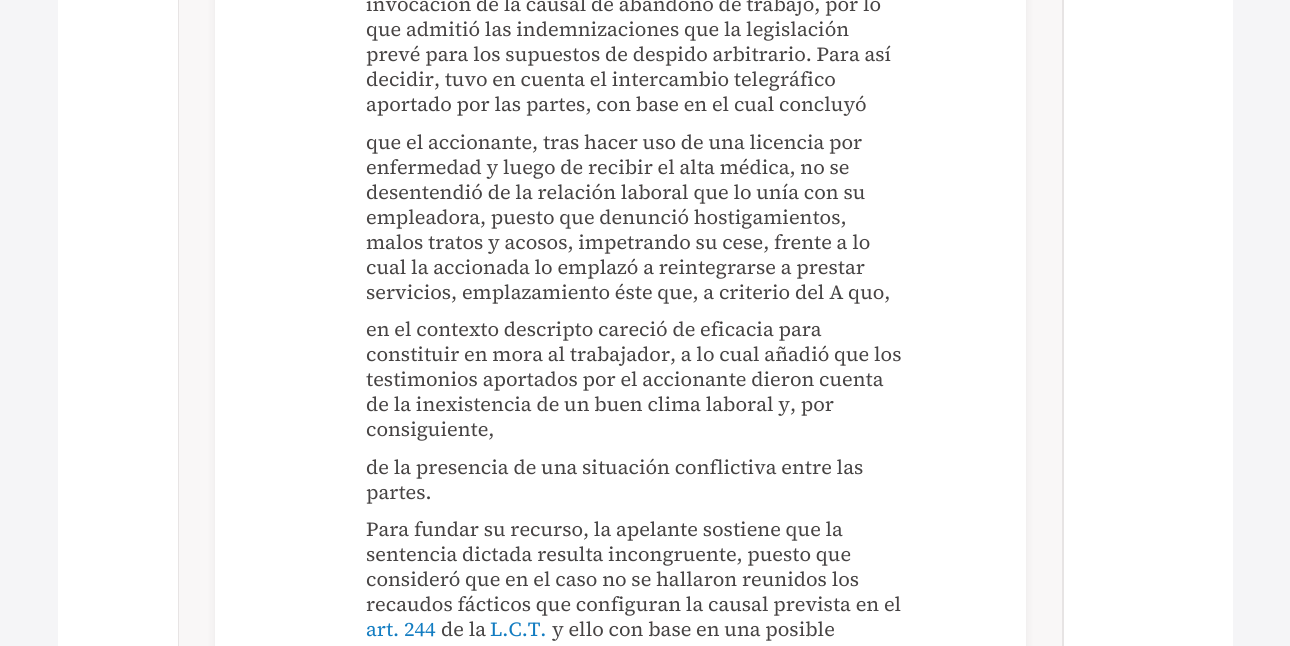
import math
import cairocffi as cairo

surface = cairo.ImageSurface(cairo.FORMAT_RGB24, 1290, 646)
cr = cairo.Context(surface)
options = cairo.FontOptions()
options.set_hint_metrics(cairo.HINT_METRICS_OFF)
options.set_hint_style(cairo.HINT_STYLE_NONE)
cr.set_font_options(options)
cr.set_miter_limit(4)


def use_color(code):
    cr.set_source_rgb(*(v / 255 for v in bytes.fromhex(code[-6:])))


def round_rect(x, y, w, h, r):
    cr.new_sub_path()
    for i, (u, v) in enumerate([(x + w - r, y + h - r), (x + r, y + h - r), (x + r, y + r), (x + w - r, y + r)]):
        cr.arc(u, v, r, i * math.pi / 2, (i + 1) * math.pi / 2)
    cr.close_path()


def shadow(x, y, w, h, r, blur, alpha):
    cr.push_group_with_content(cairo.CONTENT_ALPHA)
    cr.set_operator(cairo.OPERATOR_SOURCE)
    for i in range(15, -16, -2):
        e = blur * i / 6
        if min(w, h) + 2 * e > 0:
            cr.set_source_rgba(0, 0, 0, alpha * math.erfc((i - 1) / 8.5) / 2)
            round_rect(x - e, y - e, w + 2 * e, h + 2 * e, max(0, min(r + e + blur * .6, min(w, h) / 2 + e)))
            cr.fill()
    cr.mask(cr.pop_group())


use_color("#f5f5f7")
cr.paint()
use_color("#ffffff")
cr.rectangle(58, 0, 1175, 646)
cr.fill()
use_color("#f9f7f7")
cr.rectangle(179, 0, 883, 646)
cr.fill()
use_color("#e7e4e4")
cr.set_fill_rule(cairo.FILL_RULE_EVEN_ODD)
cr.new_path()
cr.move_to(182, -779)
cr.line_to(1059, -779)
cr.curve_to(1062, -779, 1064, -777, 1064, -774)
cr.line_to(1064, 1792)
cr.line_to(178, 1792)
cr.line_to(178, -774)
cr.curve_to(178, -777, 180, -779, 182, -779)
cr.close_path()
cr.move_to(182, -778)
cr.line_to(1059, -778)
cr.curve_to(1061, -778, 1062, -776, 1062, -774)
cr.line_to(1062, 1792)
cr.line_to(179, 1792)
cr.line_to(179, -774)
cr.curve_to(179, -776, 180, -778, 182, -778)
cr.close_path()
cr.fill()
use_color("#000000")
shadow(215, -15, 811, 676, 0, 5, 0.06)
use_color("#ffffff")
cr.rectangle(215, 0, 811, 646)
cr.fill()
cr.select_font_face("Source Serif 4")
cr.set_font_size(20)
use_color("#464343")
cr.move_to(366, 11)
cr.show_text("invocación de la causal de abandono de trabajo, por lo")
cr.move_to(366, 36)
cr.show_text("que admitió las indemnizaciones que la legislación")
cr.move_to(366, 61)
cr.show_text("prevé para los supuestos de despido arbitrario. Para así")
cr.move_to(366, 86)
cr.show_text("decidir, tuvo en cuenta el intercambio telegráfico")
cr.move_to(366, 111)
cr.show_text("aportado por las partes, con base en el cual concluyó")
cr.move_to(366, 149)
cr.show_text("que el accionante, tras hacer uso de una licencia por")
cr.move_to(366, 174)
cr.show_text("enfermedad y luego de recibir el alta médica, no se")
cr.move_to(366, 199)
cr.show_text("desentendió de la relación laboral que lo unía con su")
cr.move_to(366, 224)
cr.show_text("empleadora, puesto que denunció hostigamientos,")
cr.move_to(366, 249)
cr.show_text("malos tratos y acosos, impetrando su cese, frente a lo")
cr.move_to(366, 274)
cr.show_text("cual la accionada lo emplazó a reintegrarse a prestar")
cr.move_to(366, 299)
cr.show_text("servicios, emplazamiento éste que, a criterio del A quo,")
cr.move_to(366, 336)
cr.show_text("en el contexto descripto careció de eficacia para")
cr.move_to(366, 361)
cr.show_text("constituir en mora al trabajador, a lo cual añadió que los")
cr.move_to(366, 386)
cr.show_text("testimonios aportados por el accionante dieron cuenta")
cr.move_to(366, 411)
cr.show_text("de la inexistencia de un buen clima laboral y, por")
cr.move_to(366, 436)
cr.show_text("consiguiente,")
cr.move_to(366, 474)
cr.show_text("de la presencia de una situación conflictiva entre las")
cr.move_to(366, 499)
cr.show_text("partes.")
cr.move_to(366, 536)
cr.show_text("Para fundar su recurso, la apelante sostiene que la")
cr.move_to(366, 561)
cr.show_text("sentencia dictada resulta incongruente, puesto que")
cr.move_to(366, 586)
cr.show_text("consideró que en el caso no se hallaron reunidos los")
cr.move_to(366, 611)
cr.show_text("recaudos fácticos que configuran la causal prevista en el")
use_color("#127cc1")
cr.move_to(366, 636)
cr.show_text("art. 244")
use_color("#464343")
cr.move_to(441, 636)
cr.show_text("de la")
use_color("#127cc1")
cr.move_to(490, 636)
cr.show_text("L.C.T.")
use_color("#464343")
cr.move_to(552, 636)
cr.show_text("y ello con base en una posible")
surface.write_to_png("result.png")
